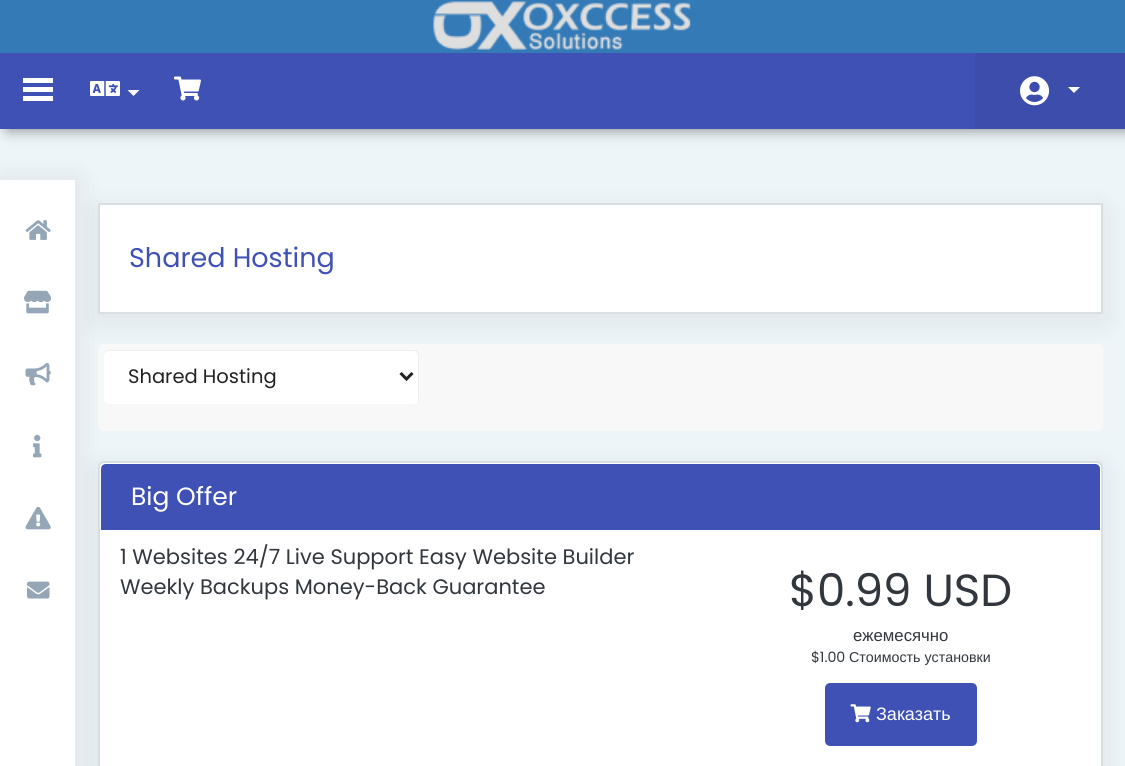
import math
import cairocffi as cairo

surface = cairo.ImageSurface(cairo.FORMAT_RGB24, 1125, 766)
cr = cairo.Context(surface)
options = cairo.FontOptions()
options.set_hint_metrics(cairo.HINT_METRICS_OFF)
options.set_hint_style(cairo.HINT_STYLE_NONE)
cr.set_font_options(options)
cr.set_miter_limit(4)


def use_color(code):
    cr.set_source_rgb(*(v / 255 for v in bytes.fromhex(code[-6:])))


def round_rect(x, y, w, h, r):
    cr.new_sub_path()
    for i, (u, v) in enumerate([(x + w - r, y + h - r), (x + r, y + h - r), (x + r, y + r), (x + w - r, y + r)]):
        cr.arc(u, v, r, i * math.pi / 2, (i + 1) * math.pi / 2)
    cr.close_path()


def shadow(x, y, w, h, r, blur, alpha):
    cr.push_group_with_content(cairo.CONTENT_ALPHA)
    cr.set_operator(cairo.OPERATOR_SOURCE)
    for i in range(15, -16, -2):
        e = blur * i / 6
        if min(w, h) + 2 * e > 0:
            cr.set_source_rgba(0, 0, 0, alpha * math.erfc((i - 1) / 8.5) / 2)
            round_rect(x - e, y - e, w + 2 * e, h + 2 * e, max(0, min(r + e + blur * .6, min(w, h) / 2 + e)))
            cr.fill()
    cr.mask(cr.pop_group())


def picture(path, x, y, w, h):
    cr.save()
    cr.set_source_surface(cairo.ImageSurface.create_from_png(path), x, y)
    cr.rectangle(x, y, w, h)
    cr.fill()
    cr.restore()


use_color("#eef5f9")
cr.paint()
use_color("#000000")
shadow(8, 0, 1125, 129, 0, 7.5, 0.5)
use_color("#3f51b5")
cr.rectangle(0, 53, 975, 76)
cr.fill()
use_color("#337ab7")
cr.rectangle(0, 0, 1125, 53)
cr.fill()
picture("img1.png", 433, 1, 258, 49)
use_color("#ffffff")
cr.rectangle(23, 78, 30, 5)
cr.fill()
cr.rectangle(23, 87, 30, 5)
cr.fill()
cr.rectangle(23, 96, 30, 5)
cr.fill()
picture("img2.png", 90, 81, 30, 15)
cr.new_path()
cr.move_to(127.5, 90)
cr.line_to(139.5, 90)
cr.line_to(133.5, 96)
cr.close_path()
cr.fill()
picture("img3.png", 174, 76, 27, 25)
use_color("#3c4dac")
cr.rectangle(975, 53, 150, 76)
cr.fill()
picture("img4.png", 1020, 76, 30, 30)
use_color("#ffffff")
cr.new_path()
cr.move_to(1068, 87)
cr.line_to(1080, 87)
cr.line_to(1074, 93)
cr.close_path()
cr.fill()
use_color("#000000")
shadow(98, 210, 1005, 111, 0, 15, 0.08)
use_color("#ffffff")
cr.rectangle(99, 204, 1003, 109)
cr.fill_preserve()
use_color("#d7dfe3")
cr.stroke()
use_color("#f8f8f8")
round_rect(98, 344, 1005, 87, 6)
cr.fill()
use_color("#ffffff")
round_rect(104, 350, 315, 54, 5)
cr.fill()
cr.set_source_rgba(0, 0, 0, 0.07)
cr.new_path()
cr.move_to(108, 351)
cr.line_to(414, 351)
cr.curve_to(416, 351, 418, 353, 418, 356)
cr.line_to(418, 400)
cr.line_to(417, 403)
cr.curve_to(418, 402, 419, 400, 419, 399)
cr.line_to(419, 355)
cr.curve_to(419, 352, 417, 350, 414, 350)
cr.line_to(109, 350)
cr.curve_to(106, 350, 104, 352, 104, 355)
cr.line_to(104, 356)
cr.curve_to(104, 353, 106, 351, 108, 351)
cr.close_path()
cr.fill()
use_color("#000000")
shadow(98, 468, 1005, 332, 6, 15, 0.08)
use_color("#ffffff")
round_rect(99, 462, 1003, 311, 5)
cr.fill_preserve()
use_color("#d7dfe3")
cr.stroke()
use_color("#3f51b5")
cr.new_path()
cr.move_to(106, 464)
cr.line_to(1095, 464)
cr.curve_to(1098, 464, 1100, 466, 1100, 469)
cr.line_to(1100, 530)
cr.line_to(101, 530)
cr.line_to(101, 469)
cr.curve_to(101, 466, 103, 464, 106, 464)
cr.close_path()
cr.fill()
use_color("#000000")
shadow(2, 180, 75, 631, 0, 15, 0.08)
use_color("#ffffff")
cr.rectangle(0, 180, 75, 586)
cr.fill()
picture("img5.png", 25, 220, 26, 20)
picture("img6.png", 24, 290, 27, 24)
picture("img7.png", 25, 362, 26, 24)
picture("img8.png", 33, 434, 9, 24)
picture("img9.png", 25, 506, 26, 24)
picture("img10.png", 27, 581, 23, 18)
cr.select_font_face("Poppins")
cr.set_font_size(27)
use_color("#3f51b5")
cr.move_to(129, 267)
cr.show_text("Shared Hosting")
cr.new_path()
cr.move_to(400.5, 373)
cr.line_to(406.5, 379)
cr.line_to(412.5, 373)
use_color("#222222")
cr.set_line_width(3)
cr.stroke()
cr.set_font_size(19.5)
cr.move_to(128, 383)
cr.show_text("Shared Hosting")
cr.set_font_size(25)
use_color("#ffffff")
cr.move_to(131, 505)
cr.show_text("Big Offer")
cr.set_font_size(21)
use_color("#31373d")
cr.move_to(120, 564)
cr.show_text("1 Websites 24/7 Live Support Easy Website Builder")
cr.move_to(120, 594)
cr.show_text("Weekly Backups Money-Back Guarantee")
cr.set_font_size(45)
cr.move_to(789, 606)
cr.show_text("$0.99 USD")
cr.select_font_face("Liberation Sans")
cr.set_font_size(16.75)
cr.move_to(853, 641)
cr.show_text("ежемесячно")
cr.select_font_face("Poppins")
cr.set_font_size(14.25)
cr.move_to(811, 662)
cr.show_text("$1.00")
cr.select_font_face("Liberation Sans")
cr.move_to(849, 662)
cr.show_text("Стоимость установки")
use_color("#3f51b5")
round_rect(826.5, 684.5, 149, 60, 3.5)
cr.fill_preserve()
cr.stroke()
picture("img11.png", 850, 704, 21, 19)
cr.set_font_size(18)
use_color("#ffffff")
cr.move_to(876, 720)
cr.show_text("Заказать")
surface.write_to_png("result.png")
